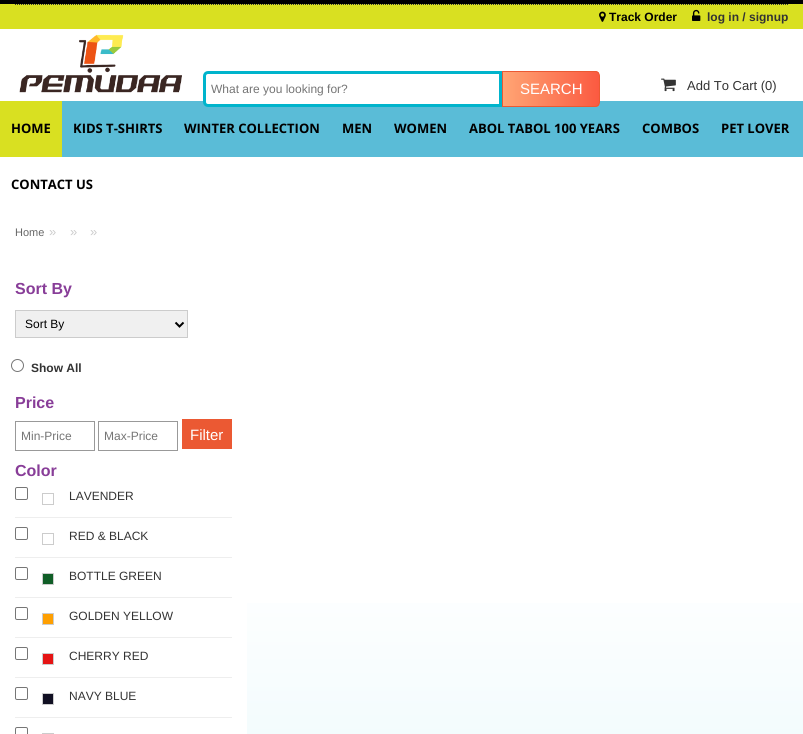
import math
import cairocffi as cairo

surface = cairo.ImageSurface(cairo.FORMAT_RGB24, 803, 734)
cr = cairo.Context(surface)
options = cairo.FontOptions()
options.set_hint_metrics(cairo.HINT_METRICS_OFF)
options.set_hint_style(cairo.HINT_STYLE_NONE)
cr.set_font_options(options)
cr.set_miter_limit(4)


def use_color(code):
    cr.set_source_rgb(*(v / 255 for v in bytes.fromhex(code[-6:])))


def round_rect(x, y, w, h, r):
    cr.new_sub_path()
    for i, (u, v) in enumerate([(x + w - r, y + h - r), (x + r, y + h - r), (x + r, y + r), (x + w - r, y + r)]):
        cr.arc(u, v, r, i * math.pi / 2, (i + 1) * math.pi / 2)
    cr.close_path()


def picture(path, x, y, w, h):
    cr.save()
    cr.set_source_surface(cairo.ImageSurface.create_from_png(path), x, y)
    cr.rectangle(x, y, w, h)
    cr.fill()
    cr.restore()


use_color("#ffffff")
cr.paint()
gradient = cairo.LinearGradient(401, 0, 402, 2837)
gradient.add_color_stop_rgba(0.2, 1, 1, 1, 1)
gradient.add_color_stop_rgba(0.2, 0.353, 0.737, 0.843, 1)
gradient.add_color_stop_rgba(0.2, 1, 1, 1, 1)
gradient.add_color_stop_rgba(0.9, 0.447, 0.843, 0.914, 1)
cr.set_source(gradient)
cr.rectangle(0, 603, 803, 131)
cr.fill()
use_color("#000000")
cr.rectangle(0, 0, 803, 4)
cr.fill()
use_color("#d9e021")
cr.rectangle(0, 4, 803, 25)
cr.fill()
cr.new_path()
cr.move_to(15, 4.5)
cr.line_to(788, 4.5)
use_color("#333333")
cr.set_line_width(1)
cr.set_dash([1, 1])
cr.stroke()
picture("img1.png", 599, 11, 7, 11)
cr.select_font_face("Liberation Sans", cairo.FONT_SLANT_NORMAL, cairo.FONT_WEIGHT_BOLD)
cr.set_font_size(12)
use_color("#000000")
cr.move_to(609, 21)
cr.show_text("Track Order")
picture("img2.png", 692, 9, 9, 12)
use_color("#333333")
cr.move_to(707, 21)
cr.show_text("log in / signup")
picture("img3.png", 19, 34, 163, 59)
use_color("#5abcd7")
cr.rectangle(62, 101, 741, 56)
cr.fill()
use_color("#ffffff")
cr.new_path()
cr.move_to(208, 72.5)
cr.line_to(500.5, 72.5)
cr.line_to(500.5, 105.5)
cr.line_to(208, 105.5)
cr.curve_to(206, 105.5, 204.5, 104, 204.5, 102)
cr.line_to(204.5, 76)
cr.curve_to(204.5, 74, 206, 72.5, 208, 72.5)
cr.close_path()
cr.fill_preserve()
use_color("#00b4cc")
cr.set_line_width(3)
cr.set_dash([])
cr.stroke()
cr.select_font_face("Liberation Sans")
use_color("#757575")
cr.move_to(211, 93)
cr.show_text("What are you looking for?")
cr.save()
cr.new_path()
cr.move_to(502, 71)
cr.line_to(595, 71)
cr.curve_to(598, 71, 600, 73, 600, 76)
cr.line_to(600, 102)
cr.curve_to(600, 105, 598, 107, 595, 107)
cr.line_to(502, 107)
cr.close_path()
cr.clip()
gradient = cairo.LinearGradient(503, 89, 599, 89)
gradient.add_color_stop_rgba(0, 1, 0.647, 0.455, 1)
gradient.add_color_stop_rgba(1, 0.984, 0.353, 0.255, 1)
cr.set_source(gradient)
cr.rectangle(503, 71, 96, 36)
cr.fill()
cr.restore()
cr.new_path()
cr.move_to(502.5, 71.5)
cr.line_to(595, 71.5)
cr.curve_to(597.5, 71.5, 599.5, 73.5, 599.5, 76)
cr.line_to(599.5, 102)
cr.curve_to(599.5, 104.5, 597.5, 106.5, 595, 106.5)
cr.line_to(502.5, 106.5)
cr.close_path()
use_color("#eb5933")
cr.set_line_width(1)
cr.stroke()
cr.set_font_size(15)
use_color("#ffffff")
cr.move_to(520, 94)
cr.show_text("SEARCH")
picture("img4.png", 661, 78, 15, 14)
cr.set_font_size(13)
use_color("#333333")
cr.move_to(687, 90)
cr.show_text("Add To Cart (0)")
use_color("#d9e021")
cr.rectangle(0, 101, 62, 56)
cr.fill()
cr.select_font_face("Open Sans", cairo.FONT_SLANT_NORMAL, cairo.FONT_WEIGHT_BOLD)
use_color("#000000")
cr.move_to(11, 133)
cr.show_text("HOME")
cr.move_to(73, 133)
cr.show_text("KIDS T-SHIRTS")
cr.move_to(184, 133)
cr.show_text("WINTER COLLECTION")
cr.move_to(342, 133)
cr.show_text("MEN")
cr.move_to(394, 133)
cr.show_text("WOMEN")
cr.move_to(469, 133)
cr.show_text("ABOL TABOL 100 YEARS")
cr.move_to(642, 133)
cr.show_text("COMBOS")
cr.move_to(721, 133)
cr.show_text("PET LOVER")
cr.move_to(11, 189)
cr.show_text("CONTACT US")
cr.select_font_face("Liberation Sans")
cr.set_font_size(11)
use_color("#666666")
cr.move_to(15, 236)
cr.show_text("Home")
cr.set_font_size(13)
use_color("#cccccc")
cr.move_to(49, 236)
cr.show_text("»")
cr.move_to(70, 236)
cr.show_text("»")
cr.move_to(90, 236)
cr.show_text("»")
use_color("#ffffff")
cr.rectangle(0, 603, 247, 131)
cr.fill()
cr.select_font_face("Liberation Sans", cairo.FONT_SLANT_NORMAL, cairo.FONT_WEIGHT_BOLD)
cr.set_font_size(16)
use_color("#883d98")
cr.move_to(15, 294)
cr.show_text("Sort By")
use_color("#f0f0f0")
cr.rectangle(15.5, 310.5, 172, 27)
cr.fill_preserve()
use_color("#cccccc")
cr.stroke()
cr.new_path()
cr.move_to(175.5, 322.5)
cr.line_to(179.5, 326.5)
cr.line_to(183.5, 322.5)
use_color("#000000")
cr.set_line_width(2)
cr.stroke()
cr.select_font_face("Liberation Sans")
cr.set_font_size(12)
cr.move_to(25, 328)
cr.show_text("Sort By")
cr.new_path()
cr.arc(17.5, 365.5, 6, 0, 2 * math.pi)
use_color("#767676")
cr.set_line_width(1)
cr.stroke()
cr.select_font_face("Liberation Sans", cairo.FONT_SLANT_NORMAL, cairo.FONT_WEIGHT_BOLD)
use_color("#333333")
cr.move_to(31, 372)
cr.show_text("Show All")
cr.set_font_size(16)
use_color("#883d98")
cr.move_to(15, 408)
cr.show_text("Price")
cr.rectangle(15.5, 421.5, 79, 29)
use_color("#999999")
cr.stroke()
cr.select_font_face("Liberation Sans")
cr.set_font_size(12)
use_color("#757575")
cr.move_to(21, 440)
cr.show_text("Min-Price")
cr.rectangle(98.5, 421.5, 79, 29)
use_color("#999999")
cr.stroke()
use_color("#757575")
cr.move_to(104, 440)
cr.show_text("Max-Price")
use_color("#eb5933")
cr.rectangle(182, 419, 50, 30)
cr.fill()
cr.set_font_size(15)
use_color("#ffffff")
cr.move_to(190, 440)
cr.show_text("Filter")
cr.select_font_face("Liberation Sans", cairo.FONT_SLANT_NORMAL, cairo.FONT_WEIGHT_BOLD)
cr.set_font_size(16)
use_color("#883d98")
cr.move_to(15, 476)
cr.show_text("Color")
use_color("#eeeeee")
cr.rectangle(15, 517, 217, 1)
cr.fill()
round_rect(15.5, 487.5, 12, 12, 1.5)
use_color("#767676")
cr.stroke()
cr.rectangle(42.5, 493.5, 11, 11)
use_color("#cccccc")
cr.stroke()
cr.select_font_face("Liberation Sans")
cr.set_font_size(12)
use_color("#333333")
cr.move_to(69, 500)
cr.show_text("LAVENDER")
use_color("#eeeeee")
cr.rectangle(15, 557, 217, 1)
cr.fill()
round_rect(15.5, 527.5, 12, 12, 1.5)
use_color("#767676")
cr.stroke()
cr.rectangle(42.5, 533.5, 11, 11)
use_color("#cccccc")
cr.stroke()
use_color("#333333")
cr.move_to(69, 540)
cr.show_text("RED & BLACK")
use_color("#eeeeee")
cr.rectangle(15, 597, 217, 1)
cr.fill()
round_rect(15.5, 567.5, 12, 12, 1.5)
use_color("#767676")
cr.stroke()
use_color("#105e27")
cr.rectangle(42.5, 573.5, 11, 11)
cr.fill_preserve()
use_color("#cccccc")
cr.stroke()
use_color("#333333")
cr.move_to(69, 580)
cr.show_text("BOTTLE GREEN")
use_color("#eeeeee")
cr.rectangle(15, 637, 217, 1)
cr.fill()
round_rect(15.5, 607.5, 12, 12, 1.5)
use_color("#767676")
cr.stroke()
use_color("#fe9f01")
cr.rectangle(42.5, 613.5, 11, 11)
cr.fill_preserve()
use_color("#cccccc")
cr.stroke()
use_color("#333333")
cr.move_to(69, 620)
cr.show_text("GOLDEN YELLOW")
use_color("#eeeeee")
cr.rectangle(15, 677, 217, 1)
cr.fill()
round_rect(15.5, 647.5, 12, 12, 1.5)
use_color("#767676")
cr.stroke()
use_color("#e51414")
cr.rectangle(42.5, 653.5, 11, 11)
cr.fill_preserve()
use_color("#cccccc")
cr.stroke()
use_color("#333333")
cr.move_to(69, 660)
cr.show_text("CHERRY RED")
use_color("#eeeeee")
cr.rectangle(15, 717, 217, 1)
cr.fill()
round_rect(15.5, 687.5, 12, 12, 1.5)
use_color("#767676")
cr.stroke()
use_color("#111023")
cr.rectangle(42.5, 693.5, 11, 11)
cr.fill_preserve()
use_color("#cccccc")
cr.stroke()
use_color("#333333")
cr.move_to(69, 700)
cr.show_text("NAVY BLUE")
round_rect(15.5, 727.5, 12, 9, 1.5)
use_color("#767676")
cr.stroke()
cr.rectangle(42.5, 733.5, 11, 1)
use_color("#cccccc")
cr.stroke()
surface.write_to_png("result.png")
